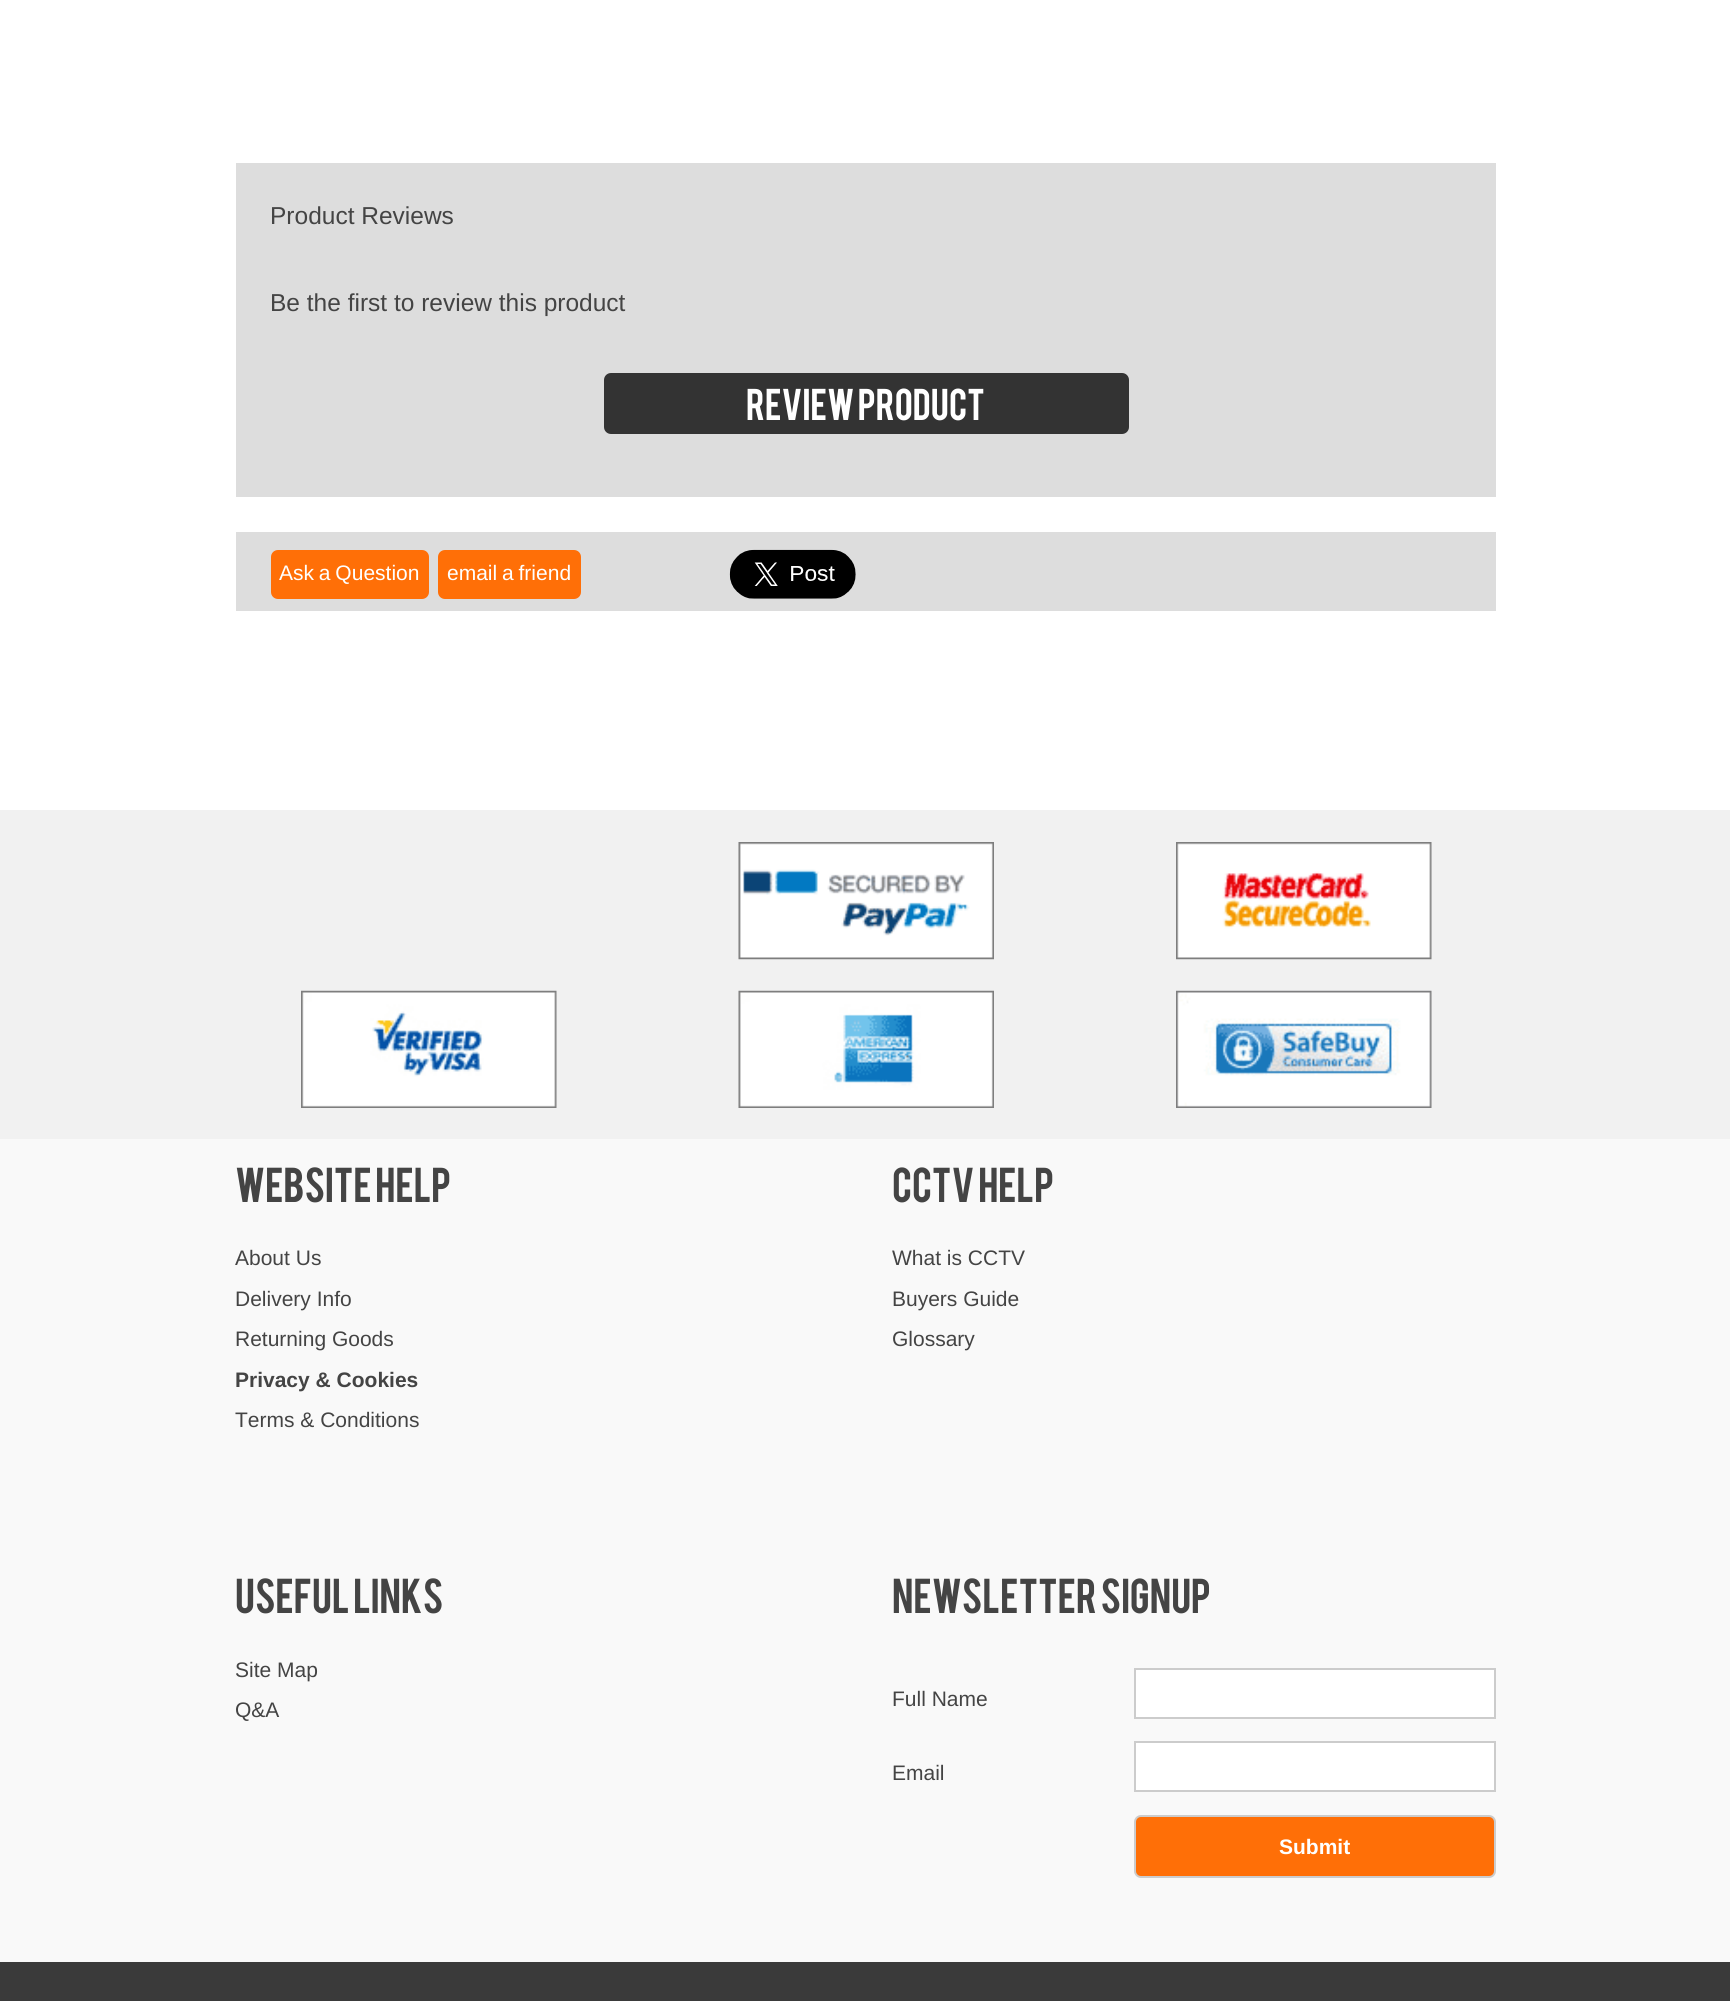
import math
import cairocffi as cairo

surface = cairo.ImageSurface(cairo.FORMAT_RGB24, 1730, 2001)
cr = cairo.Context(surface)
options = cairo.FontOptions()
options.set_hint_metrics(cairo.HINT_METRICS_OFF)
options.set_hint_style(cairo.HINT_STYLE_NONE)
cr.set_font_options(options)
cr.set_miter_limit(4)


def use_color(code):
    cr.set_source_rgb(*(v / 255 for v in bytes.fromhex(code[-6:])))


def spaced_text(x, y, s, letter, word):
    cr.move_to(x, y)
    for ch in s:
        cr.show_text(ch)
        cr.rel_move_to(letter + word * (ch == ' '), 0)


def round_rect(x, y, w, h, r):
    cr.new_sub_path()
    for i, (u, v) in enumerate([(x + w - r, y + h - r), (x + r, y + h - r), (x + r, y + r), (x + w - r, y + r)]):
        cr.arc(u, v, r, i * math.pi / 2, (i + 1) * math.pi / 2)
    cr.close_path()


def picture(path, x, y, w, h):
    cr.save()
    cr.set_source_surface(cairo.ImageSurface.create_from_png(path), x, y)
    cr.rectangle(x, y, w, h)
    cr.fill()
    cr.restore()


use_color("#ffffff")
cr.paint()
use_color("#dddddd")
cr.rectangle(236, 163, 1260, 334)
cr.fill()
cr.select_font_face("Liberation Sans")
cr.set_font_size(24.5)
use_color("#444444")
cr.move_to(270, 224)
cr.show_text("Product Reviews")
cr.move_to(270, 311)
cr.show_text("Be the first to review this product")
use_color("#333333")
round_rect(604, 373, 525, 61, 7)
cr.fill()
cr.select_font_face("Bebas")
cr.set_font_size(35)
use_color("#ffffff")
cr.move_to(746, 420)
cr.show_text("Review product")
use_color("#dddddd")
cr.rectangle(236, 532, 1260, 79)
cr.fill()
use_color("#ff6f07")
round_rect(271, 550, 158, 49, 7)
cr.fill()
cr.select_font_face("Liberation Sans")
cr.set_font_size(21)
use_color("#ffffff")
spaced_text(279, 580, "Ask a Question", 0, -1)
use_color("#ff6f07")
round_rect(438, 550, 143, 49, 7)
cr.fill()
use_color("#ffffff")
spaced_text(447, 580, "email a friend", 0, -1)
picture("img1.png", 729, 549, 127, 50)
use_color("#f1f1f1")
cr.rectangle(0, 810, 1730, 329)
cr.fill()
picture("img2.png", 738, 842, 256, 118)
picture("img3.png", 1176, 842, 256, 118)
picture("img4.png", 301, 990, 256, 118)
picture("img5.png", 738, 990, 256, 118)
picture("img6.png", 1176, 990, 256, 118)
use_color("#f9f9f9")
cr.rectangle(0, 1139, 1730, 823)
cr.fill()
cr.select_font_face("Bebas")
cr.set_font_size(38.5)
use_color("#444444")
cr.move_to(235, 1202)
cr.show_text("WEBSITE HELP")
cr.select_font_face("Liberation Sans")
cr.set_font_size(21)
cr.move_to(235, 1265)
cr.show_text("About Us")
cr.move_to(235, 1306)
cr.show_text("Delivery Info")
cr.move_to(235, 1346)
cr.show_text("Returning Goods")
cr.select_font_face("Liberation Sans", cairo.FONT_SLANT_NORMAL, cairo.FONT_WEIGHT_BOLD)
cr.move_to(235, 1387)
cr.show_text("Privacy & Cookies")
cr.select_font_face("Liberation Sans")
cr.move_to(235, 1427)
cr.show_text("Terms & Conditions")
cr.select_font_face("Bebas")
cr.set_font_size(38.5)
cr.move_to(892, 1202)
cr.show_text("CCTV HELP")
cr.select_font_face("Liberation Sans")
cr.set_font_size(21)
cr.move_to(892, 1265)
cr.show_text("What is CCTV")
cr.move_to(892, 1306)
cr.show_text("Buyers Guide")
cr.move_to(892, 1346)
cr.show_text("Glossary")
cr.select_font_face("Bebas")
cr.set_font_size(38.5)
cr.move_to(235, 1613)
cr.show_text("Useful Links")
cr.select_font_face("Liberation Sans")
cr.set_font_size(21)
cr.move_to(235, 1677)
cr.show_text("Site Map")
cr.move_to(235, 1717)
cr.show_text("Q&A")
cr.select_font_face("Bebas")
cr.set_font_size(38.5)
cr.move_to(892, 1613)
cr.show_text("NEWSLETTER SIGNUP")
cr.select_font_face("Liberation Sans")
cr.set_font_size(21)
cr.move_to(892, 1706)
cr.show_text("Full Name")
use_color("#ffffff")
cr.rectangle(1135, 1669, 360, 49)
cr.fill_preserve()
use_color("#cccccc")
cr.stroke()
use_color("#444444")
cr.move_to(892, 1780)
cr.show_text("Email")
use_color("#ffffff")
cr.rectangle(1135, 1742, 360, 49)
cr.fill_preserve()
use_color("#cccccc")
cr.stroke()
use_color("#ff6f07")
round_rect(1135, 1816, 360, 61, 6)
cr.fill_preserve()
use_color("#cccccc")
cr.stroke()
cr.select_font_face("Liberation Sans", cairo.FONT_SLANT_NORMAL, cairo.FONT_WEIGHT_BOLD)
use_color("#ffffff")
cr.move_to(1279, 1854)
cr.show_text("Submit")
use_color("#3a3a3a")
cr.rectangle(0, 1962, 1730, 39)
cr.fill()
surface.write_to_png("result.png")
